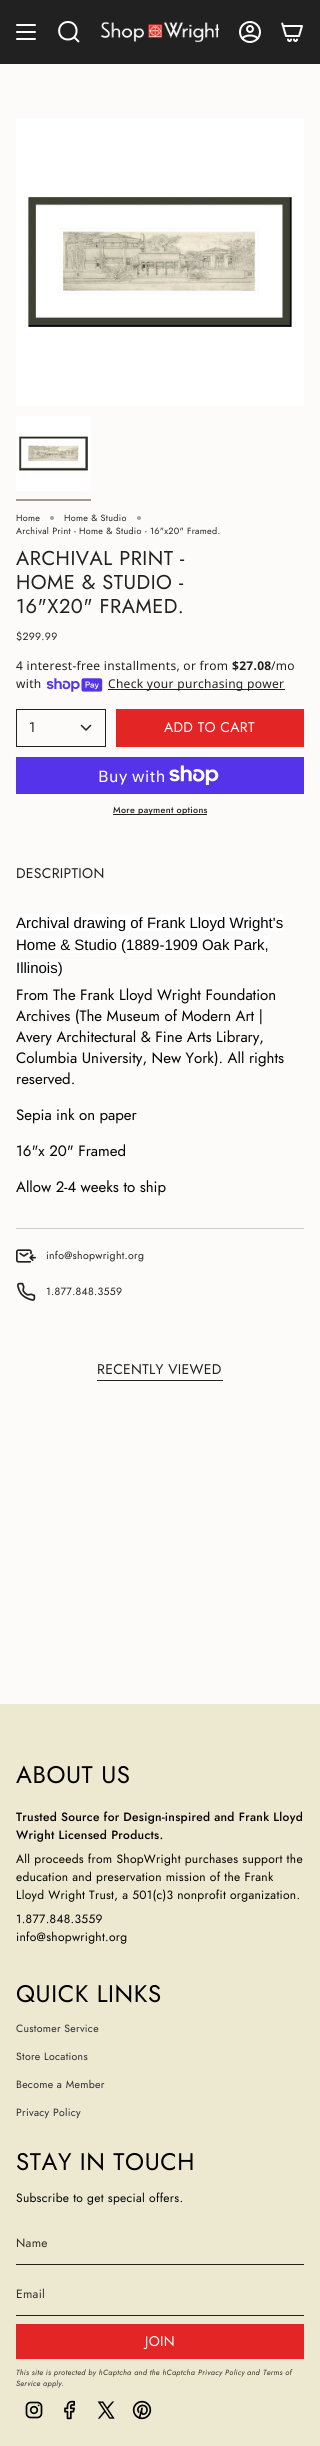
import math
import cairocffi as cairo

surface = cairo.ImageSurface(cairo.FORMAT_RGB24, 320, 2446)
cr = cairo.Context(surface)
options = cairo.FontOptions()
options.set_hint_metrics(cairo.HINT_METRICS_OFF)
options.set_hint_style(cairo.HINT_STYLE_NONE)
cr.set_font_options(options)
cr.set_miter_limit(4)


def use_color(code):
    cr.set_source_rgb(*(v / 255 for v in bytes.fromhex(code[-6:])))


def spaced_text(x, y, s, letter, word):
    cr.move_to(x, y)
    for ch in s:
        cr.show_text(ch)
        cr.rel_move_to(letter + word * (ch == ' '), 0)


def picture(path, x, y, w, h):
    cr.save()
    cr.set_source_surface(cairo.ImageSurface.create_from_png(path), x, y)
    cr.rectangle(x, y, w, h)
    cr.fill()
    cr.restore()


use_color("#fcfbf9")
cr.paint()
use_color("#212121")
cr.rectangle(0, 0, 320, 64)
cr.fill()
cr.new_path()
cr.move_to(17, 25)
cr.line_to(35, 25)
cr.move_to(17, 32)
cr.line_to(35, 32)
cr.move_to(17, 39)
cr.line_to(35, 39)
use_color("#ffffff")
cr.set_line_cap(cairo.LINE_CAP_ROUND)
cr.set_line_join(cairo.LINE_JOIN_ROUND)
cr.stroke()
cr.new_path()
cr.move_to(68, 22)
cr.curve_to(79.5, 22, 79.5, 40, 67.5, 39.5)
cr.curve_to(56, 39, 56.5, 22, 68, 22)
cr.close_path()
cr.move_to(74, 37)
cr.line_to(79, 42)
cr.set_line_cap(cairo.LINE_CAP_BUTT)
cr.set_line_join(cairo.LINE_JOIN_MITER)
cr.stroke()
picture("img1.png", 101, 21, 118, 22)
picture("img2.png", 239, 21, 22, 22)
picture("img3.png", 281, 22, 22, 20)
picture("img4.png", 16, 118, 288, 288)
picture("img5.png", 16, 416, 75, 75)
use_color("#a49c8b")
cr.rectangle(16, 499, 75, 2)
cr.fill()
cr.select_font_face("Jost")
cr.set_font_size(9)
use_color("#212121")
spaced_text(16, 521, "Home", 0.3, 0)
use_color("#a4a4a3")
cr.new_path()
cr.arc(52, 518, 2, 0, 2 * math.pi)
cr.fill()
use_color("#212121")
spaced_text(64, 521, "Home & Studio", 0.3, 0)
use_color("#a4a4a3")
cr.new_path()
cr.arc(139, 518, 2, 0, 2 * math.pi)
cr.fill()
use_color("#212121")
spaced_text(16, 534, "Archival Print - Home & Studio - 16\"x20\" Framed.", 0.3, 0)
cr.set_font_size(20)
spaced_text(16, 565, "ARCHIVAL PRINT -", 0.5, 0)
spaced_text(16, 589, "HOME & STUDIO -", 0.5, 0)
spaced_text(16, 613, "16\"X20\" FRAMED.", 0.5, 0)
cr.set_font_size(10.5)
spaced_text(16, 640, "$299.99", 0.3, 0)
cr.select_font_face("Noto Sans")
cr.set_font_size(12)
spaced_text(16, 670, "4 interest-free installments, or from", 0.3, 0)
cr.select_font_face("Noto Sans", cairo.FONT_SLANT_NORMAL, cairo.FONT_WEIGHT_BOLD)
spaced_text(232, 670, "$27.08", 0.3, 0)
cr.select_font_face("Noto Sans")
spaced_text(271, 670, "/mo", 0.3, 0)
spaced_text(16, 688, "with", 0.3, 0)
picture("img6.png", 46, 678, 57, 14)
cr.rectangle(108, 689, 177, 1)
cr.fill()
spaced_text(108, 688, "Check your purchasing power", 0.3, 0)
cr.rectangle(16.5, 709.5, 89, 37)
cr.set_line_width(1)
cr.stroke()
cr.select_font_face("Jost")
cr.set_font_size(14)
cr.move_to(29, 732)
cr.show_text("1")
cr.new_path()
cr.move_to(81.5, 725.5)
cr.line_to(86, 730)
cr.line_to(90.5, 725.5)
cr.set_line_width(1.5)
cr.set_line_cap(cairo.LINE_CAP_ROUND)
cr.set_line_join(cairo.LINE_JOIN_ROUND)
cr.stroke()
use_color("#e32525")
cr.rectangle(116, 709, 188, 38)
cr.fill()
use_color("#ffffff")
spaced_text(164, 732, "ADD TO CART", 0.3, 0)
use_color("#5433eb")
cr.rectangle(16, 757, 288, 37)
cr.fill()
cr.select_font_face("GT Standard")
cr.set_font_size(16)
use_color("#ffffff")
spaced_text(98, 782, "Buy with", 0.3, 0)
picture("img7.png", 169, 765, 50, 20)
use_color("#212121")
cr.rectangle(113, 814, 94, 1)
cr.fill()
cr.select_font_face("Jost Medium")
cr.set_font_size(9)
spaced_text(113, 813, "More payment options", 0.3, 0)
cr.select_font_face("Jost")
cr.set_font_size(14)
spaced_text(16, 878, "DESCRIPTION", 0.3, 0)
use_color("#ffffff")
cr.rectangle(16, 914, 267, 17)
cr.fill()
cr.select_font_face("Liberation Sans")
cr.set_font_size(15)
use_color("#000000")
cr.move_to(16, 928)
cr.show_text("Archival drawing of Frank Lloyd Wright's")
use_color("#ffffff")
cr.rectangle(16, 936, 253, 17)
cr.fill()
use_color("#000000")
cr.move_to(16, 950)
cr.show_text("Home & Studio (1889-1909 Oak Park,")
use_color("#ffffff")
cr.rectangle(16, 959, 47, 17)
cr.fill()
use_color("#000000")
cr.move_to(16, 973)
cr.show_text("Illinois)")
cr.select_font_face("Jost")
cr.move_to(16, 1000)
cr.show_text("From The Frank Lloyd Wright Foundation")
cr.move_to(16, 1021)
cr.show_text("Archives (The Museum of Modern Art |")
cr.move_to(16, 1042)
cr.show_text("Avery Architectural & Fine Arts Library,")
cr.move_to(16, 1063)
cr.show_text("Columbia University, New York). All rights")
cr.move_to(16, 1084)
cr.show_text("reserved.")
cr.move_to(16, 1120)
cr.show_text("Sepia ink on paper")
cr.move_to(16, 1156)
cr.show_text("16\"x 20\" Framed")
cr.move_to(16, 1192)
cr.show_text("Allow 2-4 weeks to ship")
use_color("#d1cdc4")
cr.rectangle(16, 1228, 288, 1)
cr.fill()
picture("img8.png", 16, 1249, 20, 14)
cr.set_font_size(10.5)
use_color("#212121")
spaced_text(46, 1259, "info@shopwright.org", 0.3, 0)
picture("img9.png", 17, 1282, 19, 19)
spaced_text(46, 1295, "1.877.848.3559", 0.3, 0)
cr.set_font_size(14)
spaced_text(97, 1374, "RECENTLY VIEWED", 0.3, 0)
cr.rectangle(97, 1380, 126, 1)
cr.fill()
use_color("#ede8d0")
cr.rectangle(0, 1704, 320, 742)
cr.fill()
cr.set_font_size(24)
use_color("#000000")
spaced_text(16, 1783, "ABOUT US", 0.6, 0)
cr.select_font_face("Jost Medium")
cr.set_font_size(12)
spaced_text(16, 1821, "Trusted Source for Design-inspired and Frank Lloyd", 0.3, 0)
spaced_text(16, 1839, "Wright Licensed Products.", 0.3, 0)
cr.select_font_face("Jost")
spaced_text(16, 1863, "All proceeds from ShopWright purchases support the", 0.3, 0)
spaced_text(16, 1881, "education and preservation mission of the Frank", 0.3, 0)
spaced_text(16, 1899, "Lloyd Wright Trust, a 501(c)3 nonprofit organization.", 0.3, 0)
spaced_text(16, 1923, "1.877.848.3559", 0.3, 0)
spaced_text(16, 1941, "info@shopwright.org", 0.3, 0)
cr.set_font_size(24)
spaced_text(16, 2002, "QUICK LINKS", 0.6, 0)
cr.set_font_size(10.5)
use_color("#282c2e")
spaced_text(16, 2032, "Customer Service", 0.3, 0)
spaced_text(16, 2060, "Store Locations", 0.3, 0)
spaced_text(16, 2088, "Become a Member", 0.3, 0)
spaced_text(16, 2116, "Privacy Policy", 0.3, 0)
cr.set_font_size(24)
use_color("#000000")
spaced_text(16, 2170, "STAY IN TOUCH", 0.6, 0)
cr.set_font_size(12)
spaced_text(16, 2202, "Subscribe to get special offers.", 0.3, 0)
use_color("#212121")
cr.rectangle(16, 2264, 288, 1)
cr.fill()
use_color("#2f2e2a")
spaced_text(16, 2247, "Name", 0.3, 0)
use_color("#212121")
cr.rectangle(16, 2315, 288, 1)
cr.fill()
use_color("#2f2e2a")
spaced_text(16, 2298, "Email", 0.3, 0)
use_color("#e32525")
cr.rectangle(16, 2324, 288, 35)
cr.fill()
cr.set_font_size(14)
use_color("#ffffff")
spaced_text(145, 2346, "JOIN", 0.3, 0)
cr.select_font_face("Jost", cairo.FONT_SLANT_ITALIC)
cr.set_font_size(7.5)
use_color("#2f2e2a")
spaced_text(16, 2375, "This site is protected by hCaptcha and the hCaptcha", 0.3, 0)
use_color("#282c2e")
spaced_text(198, 2375, "Privacy Policy", 0.3, 0)
use_color("#2f2e2a")
spaced_text(247, 2375, "and", 0.3, 0)
use_color("#282c2e")
spaced_text(263, 2375, "Terms of", 0.3, 0)
spaced_text(16, 2386, "Service", 0.3, 0)
use_color("#2f2e2a")
spaced_text(43, 2386, "apply.", 0.3, 0)
picture("img10.png", 25, 2401, 18, 18)
picture("img11.png", 64, 2400, 11, 20)
picture("img12.png", 97, 2401, 18, 18)
picture("img13.png", 132, 2400, 20, 20)
surface.write_to_png("result.png")
